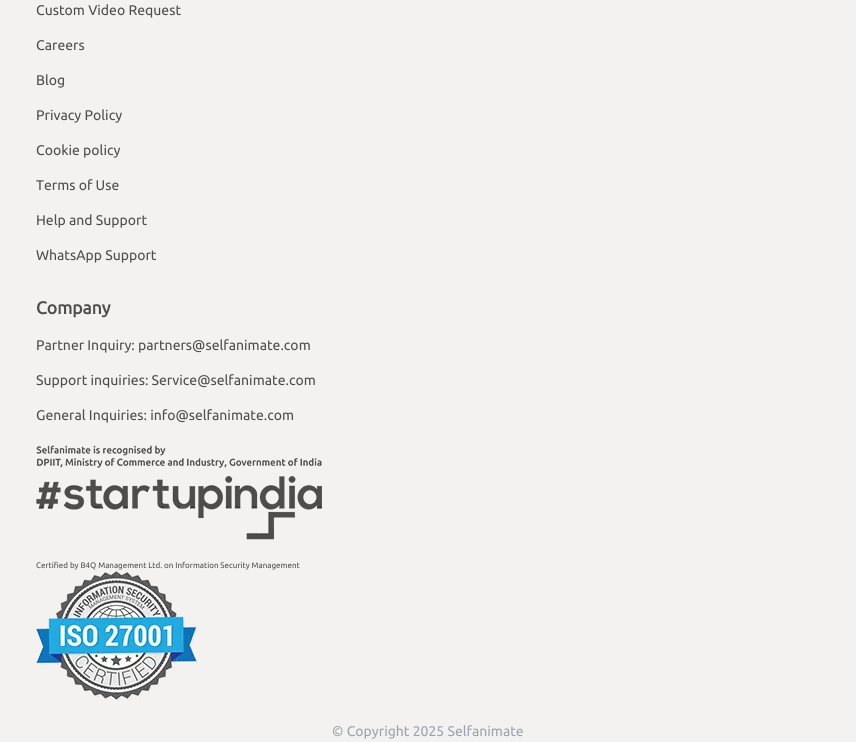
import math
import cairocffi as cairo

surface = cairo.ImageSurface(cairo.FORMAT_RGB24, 856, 742)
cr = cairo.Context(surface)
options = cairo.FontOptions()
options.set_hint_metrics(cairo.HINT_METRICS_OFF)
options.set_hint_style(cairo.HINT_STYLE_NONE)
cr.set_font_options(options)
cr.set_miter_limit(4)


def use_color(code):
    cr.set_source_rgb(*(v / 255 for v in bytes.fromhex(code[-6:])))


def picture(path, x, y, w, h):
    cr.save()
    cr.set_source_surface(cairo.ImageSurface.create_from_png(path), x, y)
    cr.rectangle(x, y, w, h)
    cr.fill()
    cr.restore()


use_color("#f4f2f1")
cr.paint()
cr.select_font_face("Ubuntu")
cr.set_font_size(14)
use_color("#4d4d4d")
cr.move_to(36, 15)
cr.show_text("Custom Video Request")
cr.move_to(36, 50)
cr.show_text("Careers")
cr.move_to(36, 85)
cr.show_text("Blog")
cr.move_to(36, 120)
cr.show_text("Privacy Policy")
cr.move_to(36, 155)
cr.show_text("Cookie policy")
cr.move_to(36, 190)
cr.show_text("Terms of Use")
cr.move_to(36, 225)
cr.show_text("Help and Support")
cr.move_to(36, 260)
cr.show_text("WhatsApp Support")
cr.select_font_face("Ubuntu", cairo.FONT_SLANT_NORMAL, cairo.FONT_WEIGHT_BOLD)
cr.set_font_size(17.5)
cr.move_to(36, 314)
cr.show_text("Company")
cr.select_font_face("Ubuntu")
cr.set_font_size(14)
cr.move_to(36, 350)
cr.show_text("Partner Inquiry: partners@selfanimate.com")
cr.move_to(36, 385)
cr.show_text("Support inquiries: Service@selfanimate.com")
cr.move_to(36, 420)
cr.show_text("General Inquiries: info@selfanimate.com")
picture("img1.png", 36, 445, 286, 95)
cr.set_font_size(8)
cr.move_to(36, 568)
cr.show_text("Certified by B4Q Management Ltd. on Information Security Management")
picture("img2.png", 36, 571, 162, 130)
cr.set_font_size(14)
use_color("#9aa2af")
cr.move_to(332, 736)
cr.show_text("© Copyright 2025 Selfanimate")
surface.write_to_png("result.png")
